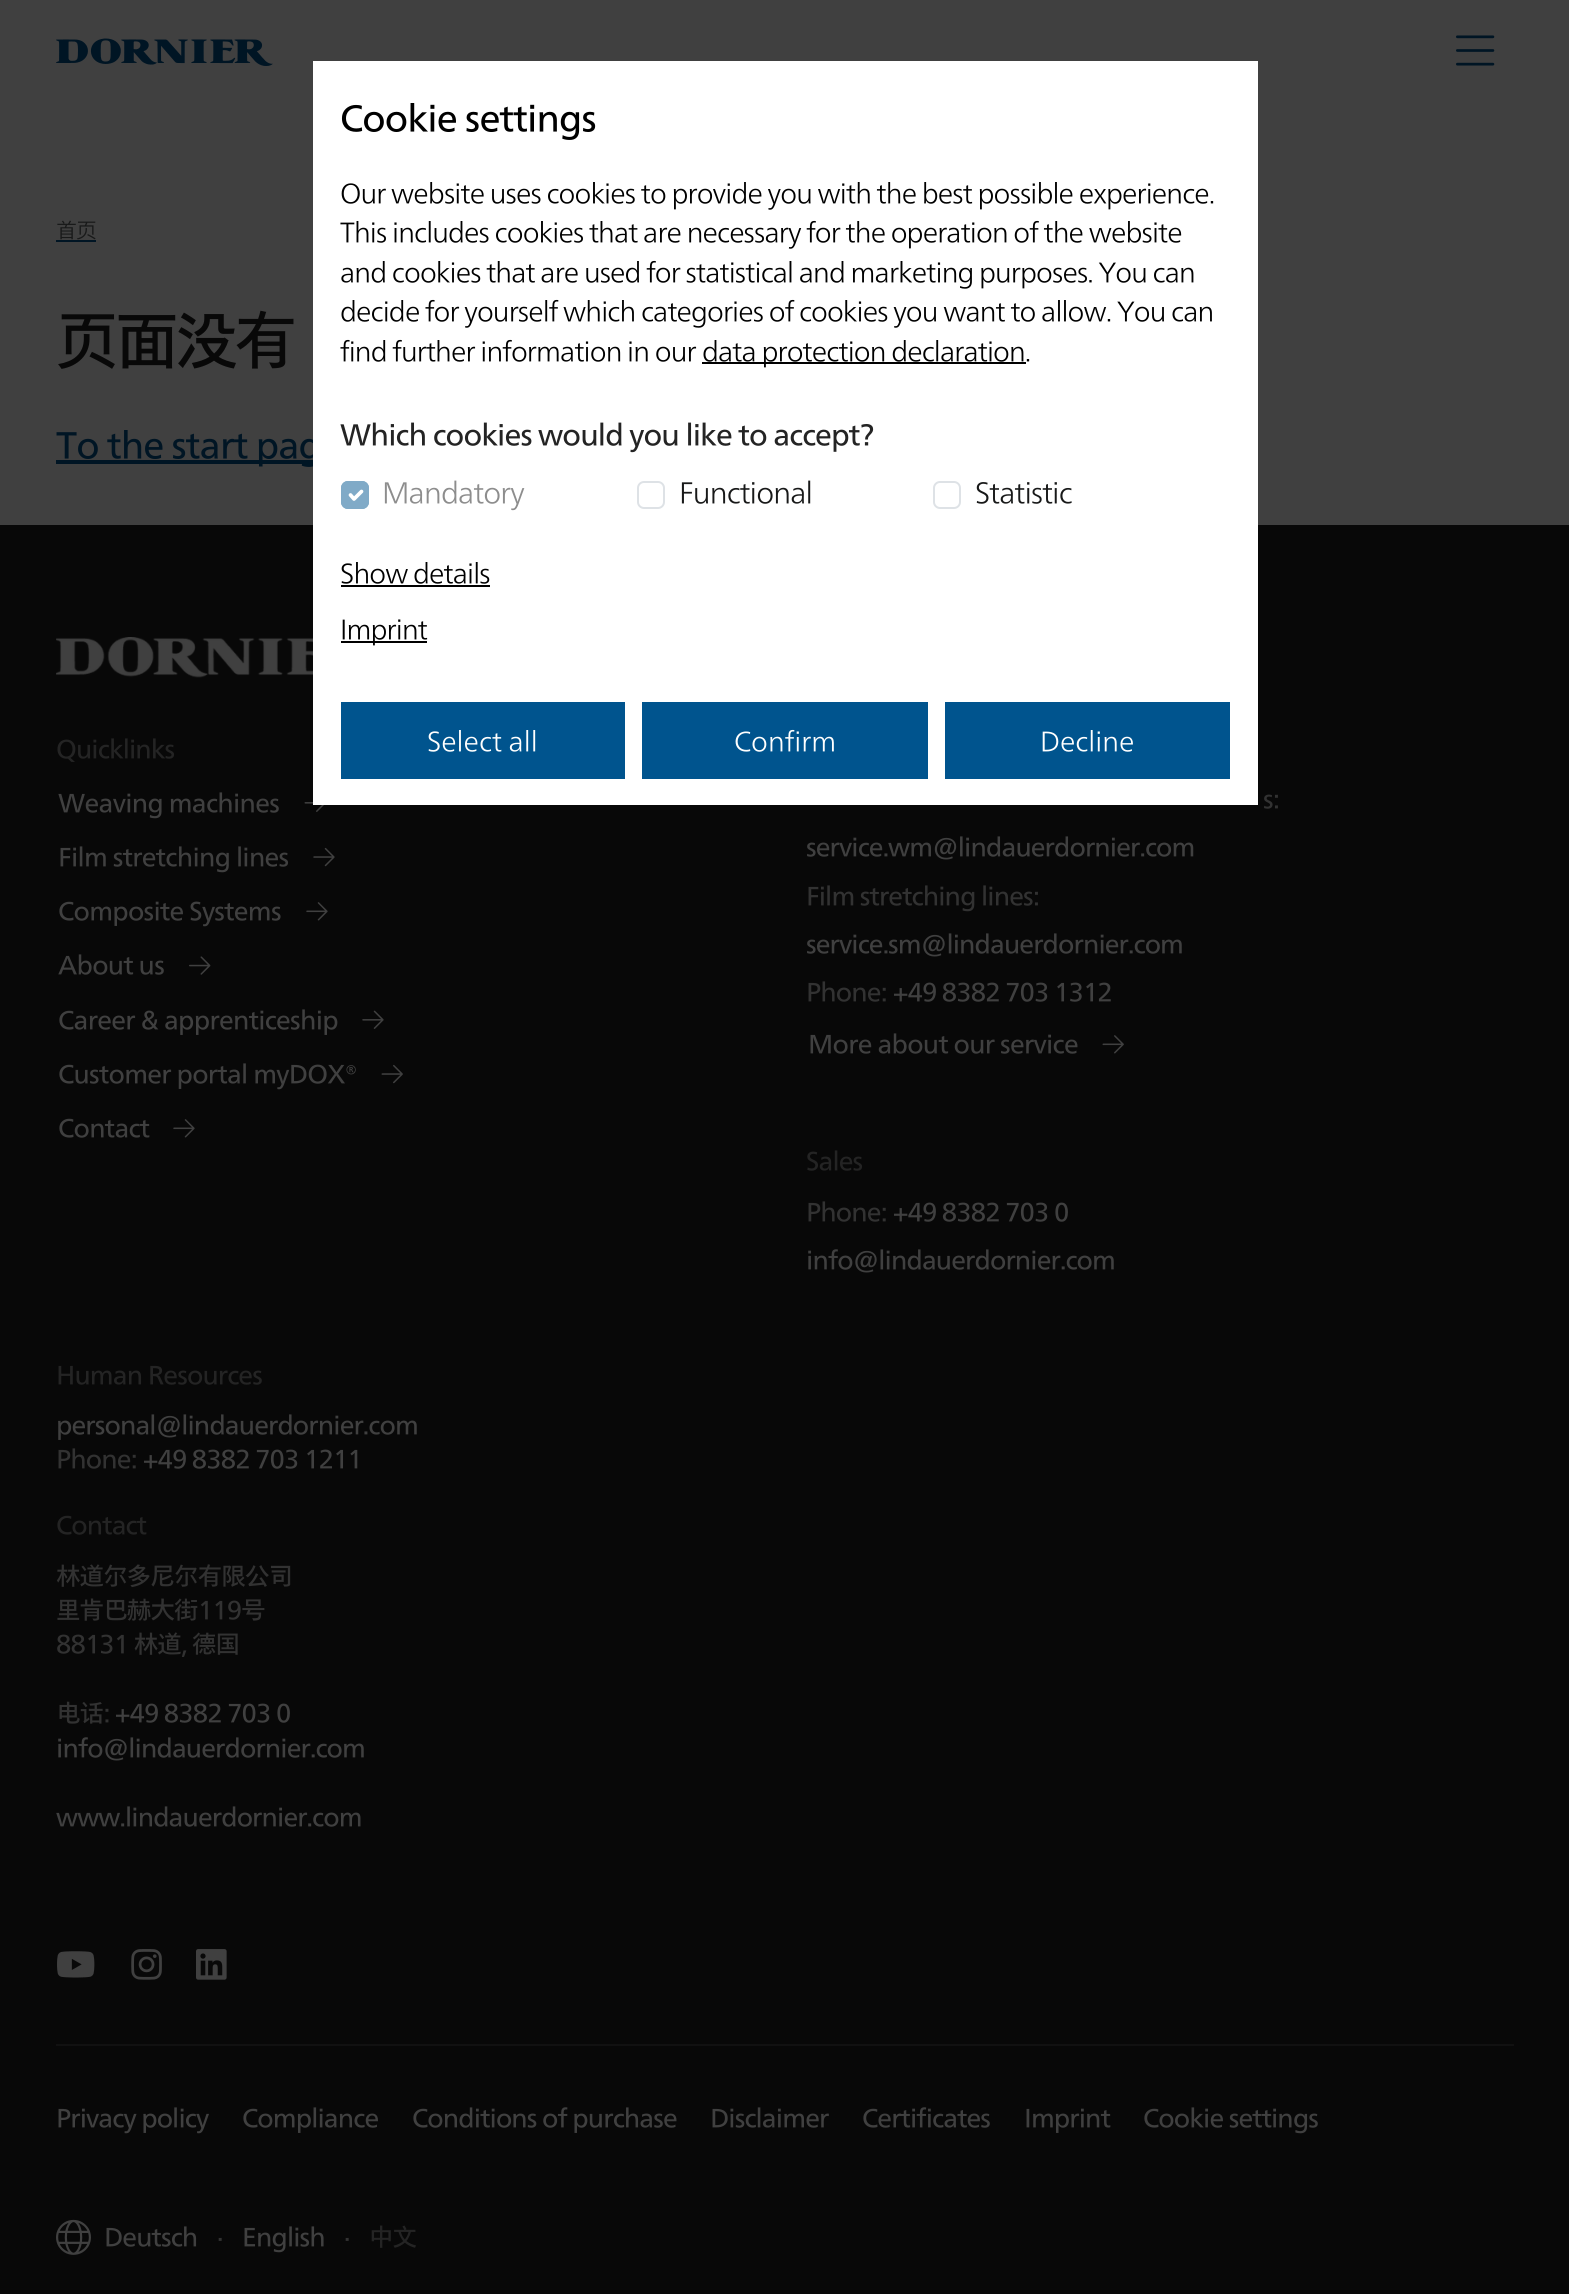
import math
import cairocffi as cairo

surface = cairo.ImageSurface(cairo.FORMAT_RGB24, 1569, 2294)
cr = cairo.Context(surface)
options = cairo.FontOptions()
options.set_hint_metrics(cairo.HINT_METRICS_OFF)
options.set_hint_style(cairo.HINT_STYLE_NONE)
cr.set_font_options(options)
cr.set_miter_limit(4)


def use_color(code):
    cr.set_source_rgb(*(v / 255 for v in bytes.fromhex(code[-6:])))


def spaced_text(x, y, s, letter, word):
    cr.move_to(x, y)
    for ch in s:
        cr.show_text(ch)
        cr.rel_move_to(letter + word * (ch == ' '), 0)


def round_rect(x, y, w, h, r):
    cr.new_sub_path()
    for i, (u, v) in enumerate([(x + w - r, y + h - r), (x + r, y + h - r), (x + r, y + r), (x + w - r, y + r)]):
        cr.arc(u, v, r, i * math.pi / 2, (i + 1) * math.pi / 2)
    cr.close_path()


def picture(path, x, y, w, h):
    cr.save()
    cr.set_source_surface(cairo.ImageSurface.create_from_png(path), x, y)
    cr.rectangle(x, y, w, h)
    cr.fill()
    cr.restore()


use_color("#080808")
cr.paint()
use_color("#404040")
cr.rectangle(0, 0, 1569, 525)
cr.fill()
picture("img1.png", 56, 38, 217, 28)
picture("img2.png", 1456, 35, 39, 31)
cr.select_font_face("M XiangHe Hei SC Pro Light")
cr.set_font_size(21)
use_color("#181919")
spaced_text(56, 238, "首页", -0.88, 0)
use_color("#001524")
cr.rectangle(56, 240, 40, 2)
cr.fill()
cr.select_font_face("M XiangHe Hei SC Pro")
cr.set_font_size(63)
use_color("#080808")
spaced_text(56, 364, "页面没有", -3.5, 0)
use_color("#001524")
cr.rectangle(56, 460, 257, 4)
cr.fill()
cr.set_font_size(35)
spaced_text(56, 458, "To the start pag", -0.88, 0)
picture("img4.png", 304, 802, 20, 10)
use_color("#ffffff")
cr.rectangle(313, 61, 945, 744)
cr.fill()
use_color("#000000")
spaced_text(340, 131, "Cookie settings", -0.88, 0)
cr.select_font_face("M XiangHe Hei SC Pro Light")
cr.set_font_size(26.25)
spaced_text(340, 203, "Our website uses cookies to provide you with the best possible experience.", -0.88, 0)
spaced_text(340, 242, "This includes cookies that are necessary for the operation of the website", -0.88, 0)
spaced_text(340, 282, "and cookies that are used for statistical and marketing purposes. You can", -0.88, 0)
spaced_text(340, 321, "decide for yourself which categories of cookies you want to allow. You can", -0.88, 0)
spaced_text(340, 361, "find further information in our", -0.88, 0)
cr.rectangle(702, 362, 324, 2)
cr.fill()
spaced_text(702, 361, "data protection declaration.", -0.88, 0)
cr.select_font_face("M XiangHe Hei SC Pro")
cr.set_font_size(28)
use_color("#242424")
spaced_text(340, 445, "Which cookies would you like to accept?", -0.88, 0)
use_color("#80aac7")
round_rect(341, 481, 28, 28, 7)
cr.fill()
cr.new_path()
cr.move_to(350.5, 495)
cr.line_to(354, 499)
cr.line_to(361.5, 491.5)
use_color("#ffffff")
cr.set_line_width(3.7)
cr.set_line_cap(cairo.LINE_CAP_ROUND)
cr.set_line_join(cairo.LINE_JOIN_ROUND)
cr.stroke()
round_rect(342, 482, 26, 26, 6)
use_color("#80aac7")
cr.set_line_width(2)
cr.set_line_cap(cairo.LINE_CAP_BUTT)
cr.set_line_join(cairo.LINE_JOIN_MITER)
cr.stroke()
cr.select_font_face("M XiangHe Hei SC Pro Light")
use_color("#8d8d8d")
spaced_text(382, 503, "Mandatory", -0.88, 0)
round_rect(638, 482, 26, 26, 6)
use_color("#dee2e6")
cr.stroke()
use_color("#181919")
spaced_text(679, 503, "Functional", -0.88, 0)
round_rect(934, 482, 26, 26, 6)
use_color("#dee2e6")
cr.stroke()
use_color("#181919")
spaced_text(975, 503, "Statistic", -0.88, 0)
cr.set_font_size(26.25)
use_color("#000000")
spaced_text(340, 583, "Show details", -0.88, 0)
cr.rectangle(341, 585, 149, 2)
cr.fill()
cr.rectangle(341, 641, 86, 2)
cr.fill()
spaced_text(340, 639, "Imprint", -0.88, 0)
use_color("#00548e")
cr.rectangle(341, 702, 284, 77)
cr.fill()
use_color("#ffffff")
cr.move_to(427, 751)
cr.show_text("Select all")
use_color("#00548e")
cr.rectangle(642, 702, 286, 77)
cr.fill()
use_color("#ffffff")
cr.move_to(734, 751)
cr.show_text("Confirm")
use_color("#00548e")
cr.rectangle(945, 702, 285, 77)
cr.fill()
use_color("#ffffff")
cr.move_to(1040, 751)
cr.show_text("Decline")
picture("img3.png", 56, 637, 257, 41)
cr.select_font_face("M XiangHe Hei SC Pro")
cr.set_font_size(24.5)
use_color("#242424")
spaced_text(56, 758, "Quicklinks", -0.88, 0)
use_color("#404040")
spaced_text(58, 812, "Weaving machines", -0.7, 0)
spaced_text(58, 866, "Film stretching lines", -0.7, 0)
picture("img5.png", 313, 847, 22, 20)
spaced_text(58, 920, "Composite Systems", -0.7, 0)
picture("img6.png", 306, 902, 22, 19)
spaced_text(58, 974, "About us", -0.7, 0)
picture("img7.png", 189, 956, 22, 19)
spaced_text(58, 1029, "Career & apprenticeship", -0.7, 0)
picture("img8.png", 362, 1010, 22, 19)
spaced_text(58, 1083, "Customer portal myDOX®", -0.7, 0)
picture("img9.png", 381, 1064, 22, 20)
spaced_text(58, 1137, "Contact", -0.7, 0)
picture("img6.png", 173, 1119, 22, 19)
use_color("#323232")
spaced_text(1263, 808, "s:", -0.88, 0)
use_color("#404040")
spaced_text(806, 856, "service.wm@lindauerdornier.com", -0.88, 0)
use_color("#323232")
spaced_text(806, 905, "Film stretching lines:", -0.88, 0)
use_color("#404040")
spaced_text(806, 953, "service.sm@lindauerdornier.com", -0.88, 0)
use_color("#323232")
spaced_text(806, 1001, "Phone:", -0.88, 0)
use_color("#404040")
spaced_text(893, 1001, "+49 8382 703 1312", -0.88, 0)
spaced_text(808, 1053, "More about our service", -0.7, 0)
picture("img10.png", 1102, 1035, 22, 19)
use_color("#242424")
spaced_text(806, 1170, "Sales", -0.88, 0)
use_color("#323232")
spaced_text(806, 1221, "Phone:", -0.88, 0)
use_color("#404040")
spaced_text(893, 1221, "+49 8382 703 0", -0.88, 0)
spaced_text(806, 1269, "info@lindauerdornier.com", -0.88, 0)
use_color("#242424")
spaced_text(56, 1384, "Human Resources", -0.88, 0)
use_color("#404040")
spaced_text(56, 1434, "personal@lindauerdornier.com", -0.88, 0)
use_color("#323232")
spaced_text(56, 1468, "Phone:", -0.88, 0)
use_color("#404040")
spaced_text(143, 1468, "+49 8382 703 1211", -0.88, 0)
use_color("#242424")
spaced_text(56, 1534, "Contact", -0.88, 0)
use_color("#323232")
spaced_text(56, 1585, "林道尔多尼尔有限公司", -0.88, 0)
spaced_text(56, 1619, "里肯巴赫大街119号", -0.88, 0)
spaced_text(56, 1653, "88131 林道, 德国", -0.88, 0)
spaced_text(56, 1722, "电话:", -0.88, 0)
use_color("#404040")
spaced_text(115, 1722, "+49 8382 703 0", -0.88, 0)
spaced_text(56, 1757, "info@lindauerdornier.com", -0.88, 0)
spaced_text(56, 1826, "www.lindauerdornier.com", -0.88, 0)
picture("img11.png", 57, 1951, 38, 27)
picture("img12.png", 131, 1949, 31, 31)
picture("img13.png", 196, 1949, 31, 31)
use_color("#111111")
cr.rectangle(56, 2044, 1458, 2)
cr.fill()
use_color("#404040")
spaced_text(56, 2127, "Privacy policy", -0.88, 0)
spaced_text(242, 2127, "Compliance", -0.88, 0)
spaced_text(412, 2127, "Conditions of purchase", -0.88, 0)
spaced_text(710, 2127, "Disclaimer", -0.88, 0)
spaced_text(862, 2127, "Certificates", -0.88, 0)
spaced_text(1024, 2127, "Imprint", -0.88, 0)
spaced_text(1143, 2127, "Cookie settings", -0.88, 0)
picture("img14.png", 56, 2219, 35, 36)
spaced_text(104, 2246, "Deutsch", -0.88, 0)
use_color("#323232")
spaced_text(217, 2246, "·", -0.88, 0)
use_color("#404040")
spaced_text(242, 2246, "English", -0.88, 0)
use_color("#323232")
spaced_text(344, 2246, "·", -0.88, 0)
use_color("#242424")
spaced_text(369, 2246, "中文", -0.88, 0)
surface.write_to_png("result.png")
